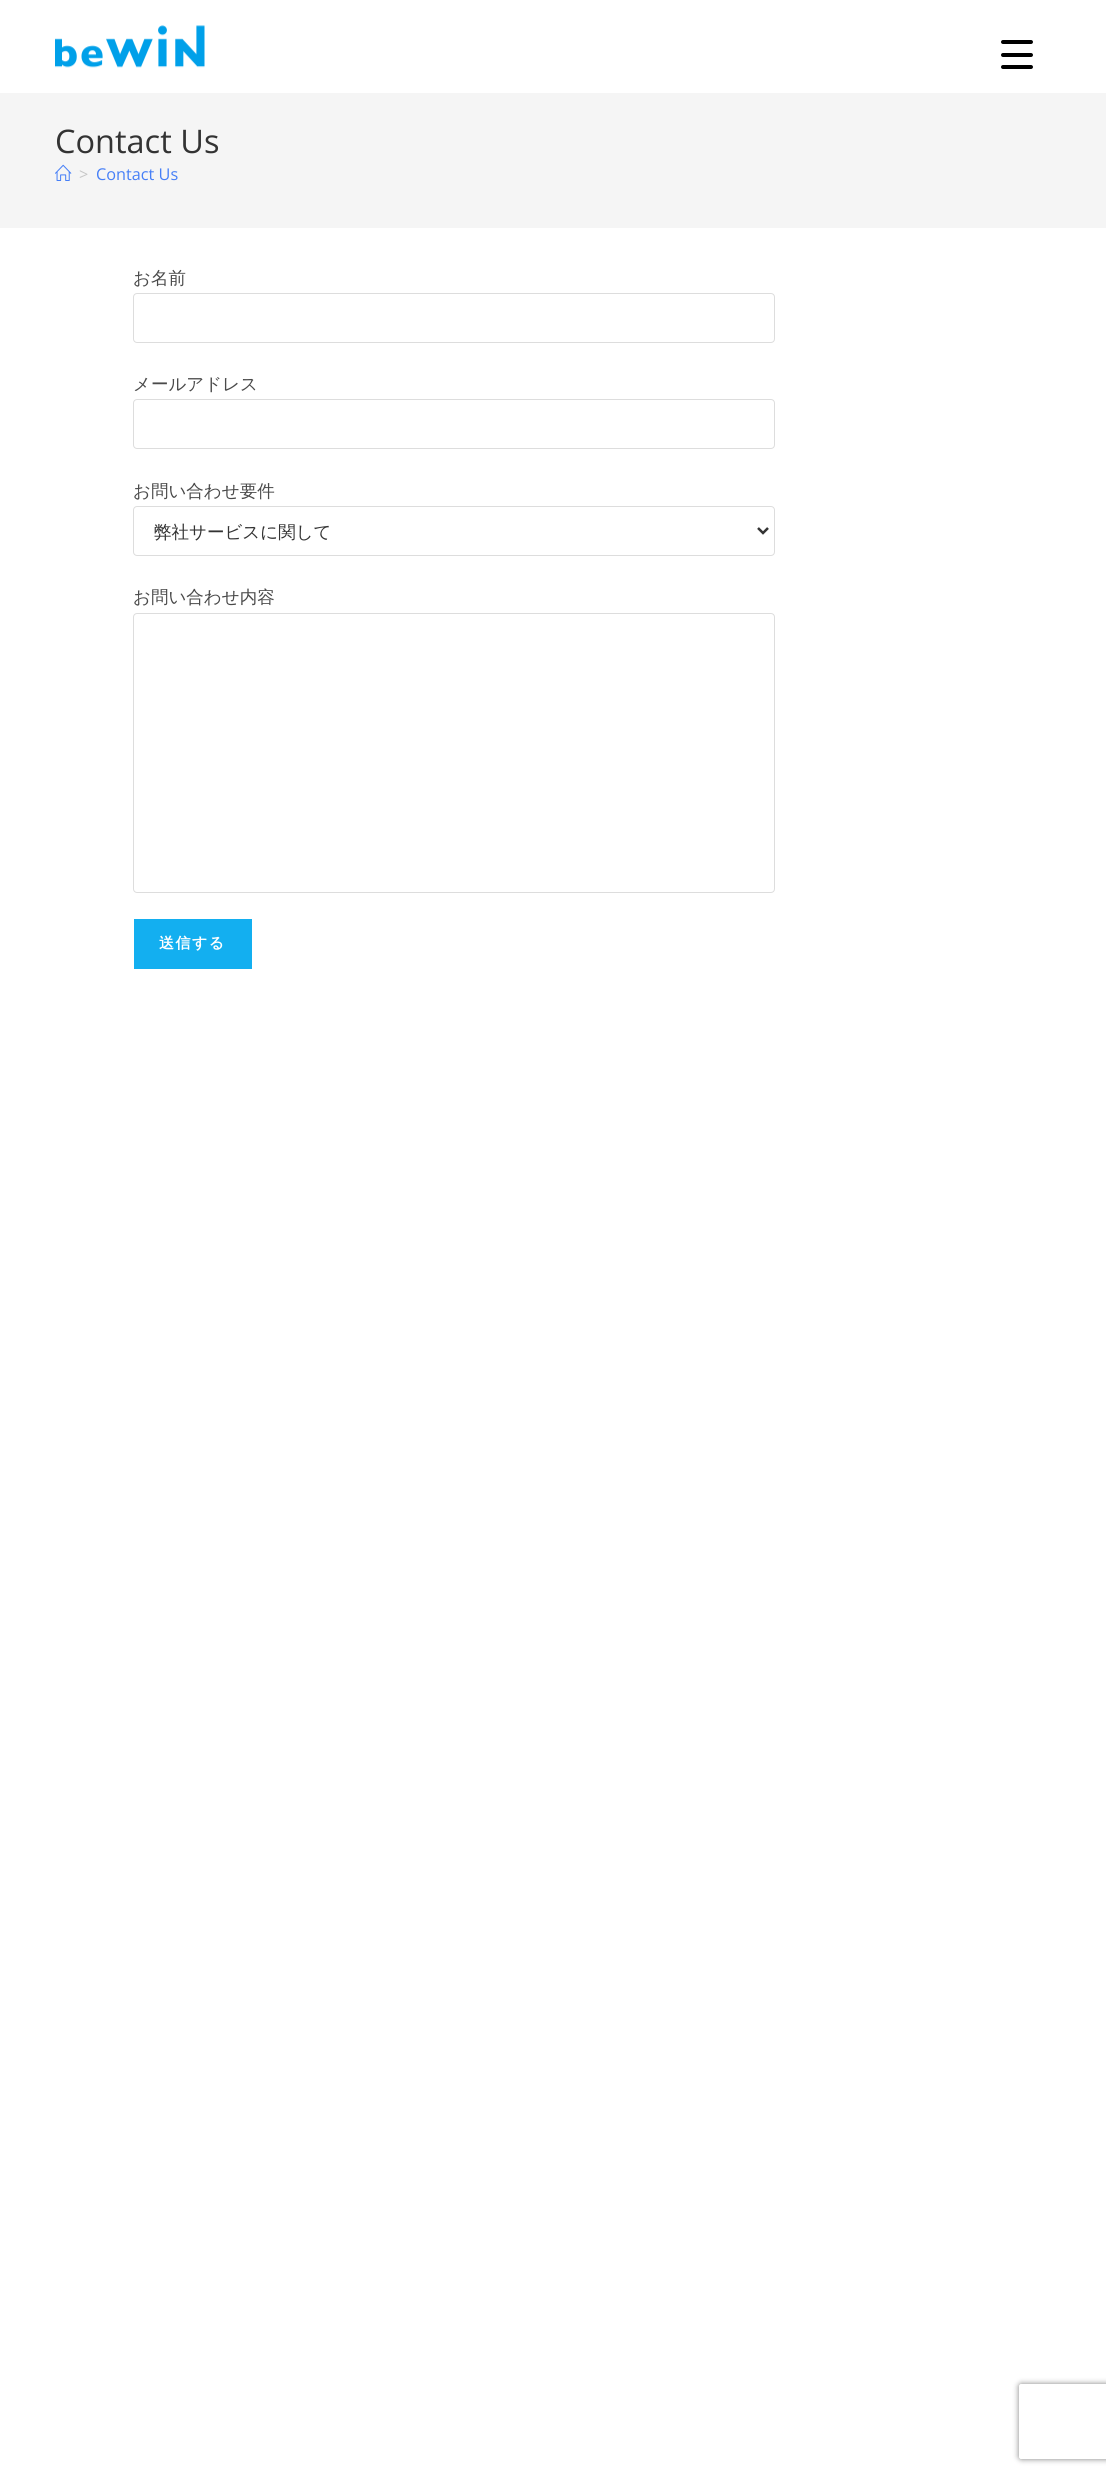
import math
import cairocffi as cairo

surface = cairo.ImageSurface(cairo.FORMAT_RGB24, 1106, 2476)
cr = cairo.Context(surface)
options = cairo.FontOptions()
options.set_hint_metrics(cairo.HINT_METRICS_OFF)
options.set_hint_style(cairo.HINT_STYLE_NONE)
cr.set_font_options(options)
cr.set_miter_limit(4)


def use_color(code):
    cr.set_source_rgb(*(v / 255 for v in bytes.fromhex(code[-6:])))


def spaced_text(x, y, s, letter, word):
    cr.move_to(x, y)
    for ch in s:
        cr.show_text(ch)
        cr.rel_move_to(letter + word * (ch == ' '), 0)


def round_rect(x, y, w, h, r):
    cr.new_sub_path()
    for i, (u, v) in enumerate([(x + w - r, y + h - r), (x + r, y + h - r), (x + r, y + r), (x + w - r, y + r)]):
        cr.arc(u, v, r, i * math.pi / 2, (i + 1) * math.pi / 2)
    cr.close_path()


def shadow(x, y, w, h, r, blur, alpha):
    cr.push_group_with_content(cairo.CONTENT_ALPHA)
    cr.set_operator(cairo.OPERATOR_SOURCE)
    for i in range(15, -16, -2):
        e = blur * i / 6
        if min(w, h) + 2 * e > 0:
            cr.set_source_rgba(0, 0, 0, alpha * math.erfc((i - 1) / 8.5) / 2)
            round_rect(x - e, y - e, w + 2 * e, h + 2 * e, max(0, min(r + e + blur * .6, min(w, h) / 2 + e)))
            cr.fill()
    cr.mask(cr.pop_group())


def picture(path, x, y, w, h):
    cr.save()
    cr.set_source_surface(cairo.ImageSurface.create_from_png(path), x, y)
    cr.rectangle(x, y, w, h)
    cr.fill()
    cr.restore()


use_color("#ffffff")
cr.paint()
use_color("#000000")
round_rect(1001, 53, 32, 4, 2)
cr.fill()
round_rect(1001, 40, 32, 4, 2)
cr.fill()
round_rect(1001, 65, 32, 4, 2)
cr.fill()
picture("img1.png", 55, 25, 150, 43)
use_color("#f5f5f5")
cr.rectangle(0, 93, 1106, 135)
cr.fill()
cr.select_font_face("Open Sans")
cr.set_font_size(32.5)
use_color("#333333")
cr.move_to(55, 153)
cr.show_text("Contact Us")
picture("img2.png", 55, 164, 17, 17)
cr.set_font_size(16.25)
use_color("#c6c6c6")
cr.move_to(79, 180)
cr.show_text(">")
use_color("#467ff7")
cr.move_to(96, 180)
cr.show_text("Contact Us")
cr.select_font_face("WenQuanYi Zen Hei Medium")
cr.set_font_size(17.5)
use_color("#4a4a4a")
cr.move_to(133, 284)
cr.show_text("お名前")
round_rect(133.5, 293.5, 641, 49, 3.5)
use_color("#dddddd")
cr.set_line_width(1)
cr.stroke()
use_color("#4a4a4a")
cr.move_to(133, 390)
cr.show_text("メールアドレス")
round_rect(133.5, 399.5, 641, 49, 3.5)
use_color("#dddddd")
cr.stroke()
use_color("#4a4a4a")
cr.move_to(133, 497)
cr.show_text("お問い合わせ要件")
round_rect(133.5, 506.5, 641, 49, 3.5)
use_color("#dddddd")
cr.stroke()
cr.new_path()
cr.move_to(758, 528)
cr.line_to(763, 533)
cr.line_to(768, 528)
use_color("#333333")
cr.set_line_width(2.5)
cr.stroke()
cr.move_to(154, 538)
cr.show_text("弊社サービスに関して")
use_color("#4a4a4a")
cr.move_to(133, 603)
cr.show_text("お問い合わせ内容")
round_rect(133.5, 613.5, 641, 279, 3.5)
use_color("#dddddd")
cr.set_line_width(1)
cr.stroke()
use_color("#13aff0")
cr.rectangle(134, 919, 118, 50)
cr.fill()
cr.select_font_face("WenQuanYi Zen Hei", cairo.FONT_SLANT_NORMAL, cairo.FONT_WEIGHT_BOLD)
cr.set_font_size(15)
use_color("#ffffff")
spaced_text(159, 948, "送信する", 1.5, 0)
cr.save()
cr.set_fill_rule(cairo.FILL_RULE_EVEN_ODD)
cr.new_path()
cr.move_to(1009, 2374)
cr.line_to(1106, 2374)
cr.line_to(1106, 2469)
cr.line_to(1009, 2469)
cr.close_path()
cr.move_to(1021.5, 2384)
cr.line_to(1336.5, 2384)
cr.curve_to(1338, 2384, 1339, 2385, 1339, 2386.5)
cr.line_to(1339, 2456.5)
cr.curve_to(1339, 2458, 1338, 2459, 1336.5, 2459)
cr.line_to(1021.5, 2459)
cr.curve_to(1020, 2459, 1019, 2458, 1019, 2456.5)
cr.line_to(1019, 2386.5)
cr.curve_to(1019, 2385, 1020, 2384, 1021.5, 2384)
cr.close_path()
cr.clip()
use_color("#808080")
shadow(1019, 2384, 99, 75, 2.5, 3, 1)
cr.restore()
surface.write_to_png("result.png")
